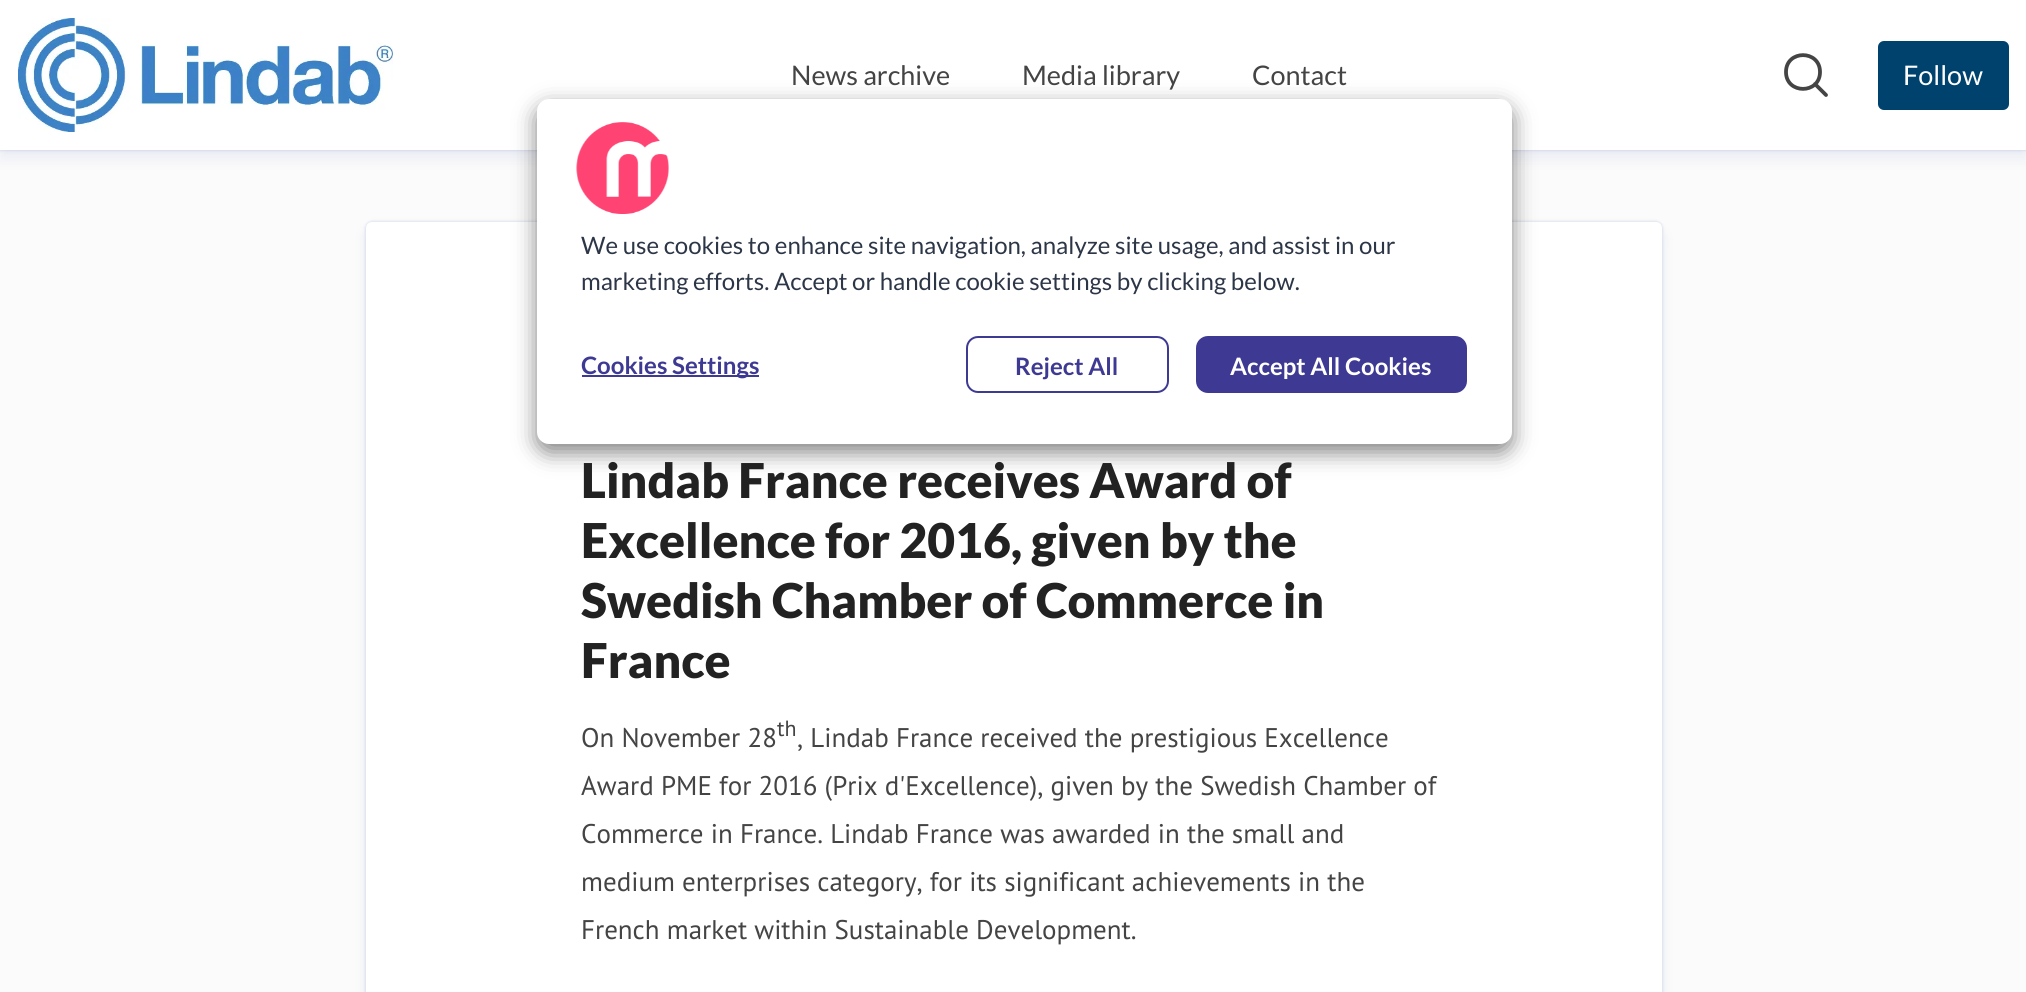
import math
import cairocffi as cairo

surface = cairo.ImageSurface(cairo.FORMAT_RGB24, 2026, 992)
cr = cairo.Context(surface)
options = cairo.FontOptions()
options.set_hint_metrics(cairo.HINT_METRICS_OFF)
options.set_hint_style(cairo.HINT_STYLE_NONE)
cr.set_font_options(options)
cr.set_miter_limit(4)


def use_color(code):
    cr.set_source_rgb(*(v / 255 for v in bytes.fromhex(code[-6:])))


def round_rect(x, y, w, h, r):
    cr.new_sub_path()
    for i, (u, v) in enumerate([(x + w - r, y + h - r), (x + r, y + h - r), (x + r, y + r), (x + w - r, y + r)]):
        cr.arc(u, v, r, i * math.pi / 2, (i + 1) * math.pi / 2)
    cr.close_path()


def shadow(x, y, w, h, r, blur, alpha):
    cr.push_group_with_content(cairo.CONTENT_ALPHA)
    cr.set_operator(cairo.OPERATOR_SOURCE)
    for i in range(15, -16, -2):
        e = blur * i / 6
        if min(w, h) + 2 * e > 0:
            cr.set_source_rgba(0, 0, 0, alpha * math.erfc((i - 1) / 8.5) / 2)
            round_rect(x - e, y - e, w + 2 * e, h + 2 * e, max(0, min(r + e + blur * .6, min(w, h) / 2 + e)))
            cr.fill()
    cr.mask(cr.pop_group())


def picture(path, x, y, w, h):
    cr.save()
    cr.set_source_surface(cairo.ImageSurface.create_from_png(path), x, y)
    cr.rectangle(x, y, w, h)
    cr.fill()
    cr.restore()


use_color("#fbfbfb")
cr.paint()
use_color("#3149a4")
shadow(0, 0, 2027, 150, 0, 1.5, 0.14)
shadow(0, 0, 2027, 150, 0, 2, 0.1)
shadow(0, 9, 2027, 150, 0, 7.5, 0.08)
use_color("#ffffff")
cr.rectangle(0, 0, 2026, 150)
cr.fill()
picture("img1.png", 18, 18, 375, 114)
cr.select_font_face("Lato")
cr.set_font_size(27)
use_color("#444444")
cr.move_to(791, 85)
cr.show_text("News archive")
cr.move_to(1022, 85)
cr.show_text("Media library")
cr.move_to(1252, 85)
cr.show_text("Contact")
cr.new_path()
cr.move_to(1820, 72)
cr.curve_to(1820, 94.5, 1786, 94.5, 1786, 72)
cr.curve_to(1786, 49.5, 1820, 49.5, 1820, 72)
cr.close_path()
cr.move_to(1826, 95)
cr.line_to(1815, 84)
cr.set_line_width(3.8)
cr.set_line_cap(cairo.LINE_CAP_ROUND)
cr.stroke()
use_color("#00426e")
round_rect(1879, 42, 129, 67, 5)
cr.fill_preserve()
cr.set_line_width(2)
cr.set_line_cap(cairo.LINE_CAP_BUTT)
cr.stroke()
use_color("#ffffff")
cr.move_to(1903, 85)
cr.show_text("Follow")
use_color("#3149a4")
shadow(366, 222, 1296, 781, 6, 1.5, 0.14)
shadow(366, 222, 1296, 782, 6, 2, 0.1)
shadow(366, 231, 1296, 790, 6, 7.5, 0.08)
use_color("#ffffff")
round_rect(366, 222, 1296, 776, 6)
cr.fill()
use_color("#000000")
shadow(537, 107, 975, 345, 12, 11, 0.5)
use_color("#ffffff")
round_rect(537, 99, 975, 345, 12)
cr.fill()
picture("img2.png", 576, 122, 93, 92)
cr.set_font_size(24)
use_color("#2c3647")
cr.move_to(581, 254)
cr.show_text("We use cookies to enhance site navigation, analyze site usage, and assist in our")
cr.move_to(581, 290)
cr.show_text("marketing efforts. Accept or handle cookie settings by clicking below.")
use_color("#3e3a93")
cr.rectangle(582, 375, 177, 2)
cr.fill()
cr.select_font_face("Lato", cairo.FONT_SLANT_NORMAL, cairo.FONT_WEIGHT_BOLD)
cr.move_to(581, 374)
cr.show_text("Cookies Settings")
round_rect(967, 337, 201, 55, 11)
cr.stroke()
cr.move_to(1015, 375)
cr.show_text("Reject All")
round_rect(1197, 337, 269, 55, 11)
cr.fill_preserve()
cr.stroke()
use_color("#ffffff")
cr.move_to(1230, 375)
cr.show_text("Accept All Cookies")
cr.select_font_face("Lato Black")
cr.set_font_size(48)
use_color("#222222")
cr.move_to(581, 498)
cr.show_text("Lindab France receives Award of")
cr.move_to(581, 558)
cr.show_text("Excellence for 2016, given by the")
cr.move_to(581, 618)
cr.show_text("Swedish Chamber of Commerce in")
cr.move_to(581, 678)
cr.show_text("France")
cr.select_font_face("PT Sans")
cr.set_font_size(27)
use_color("#444444")
cr.move_to(581, 747)
cr.show_text("On November 28")
cr.set_font_size(22)
cr.move_to(777, 736)
cr.show_text("th")
cr.set_font_size(27)
cr.move_to(797, 747)
cr.show_text(", Lindab France received the prestigious Excellence")
cr.move_to(581, 795)
cr.show_text("Award PME for 2016 (Prix d'Excellence), given by the Swedish Chamber of")
cr.move_to(581, 843)
cr.show_text("Commerce in France. Lindab France was awarded in the small and")
cr.move_to(581, 891)
cr.show_text("medium enterprises category, for its significant achievements in the")
cr.move_to(581, 939)
cr.show_text("French market within Sustainable Development.")
surface.write_to_png("result.png")
